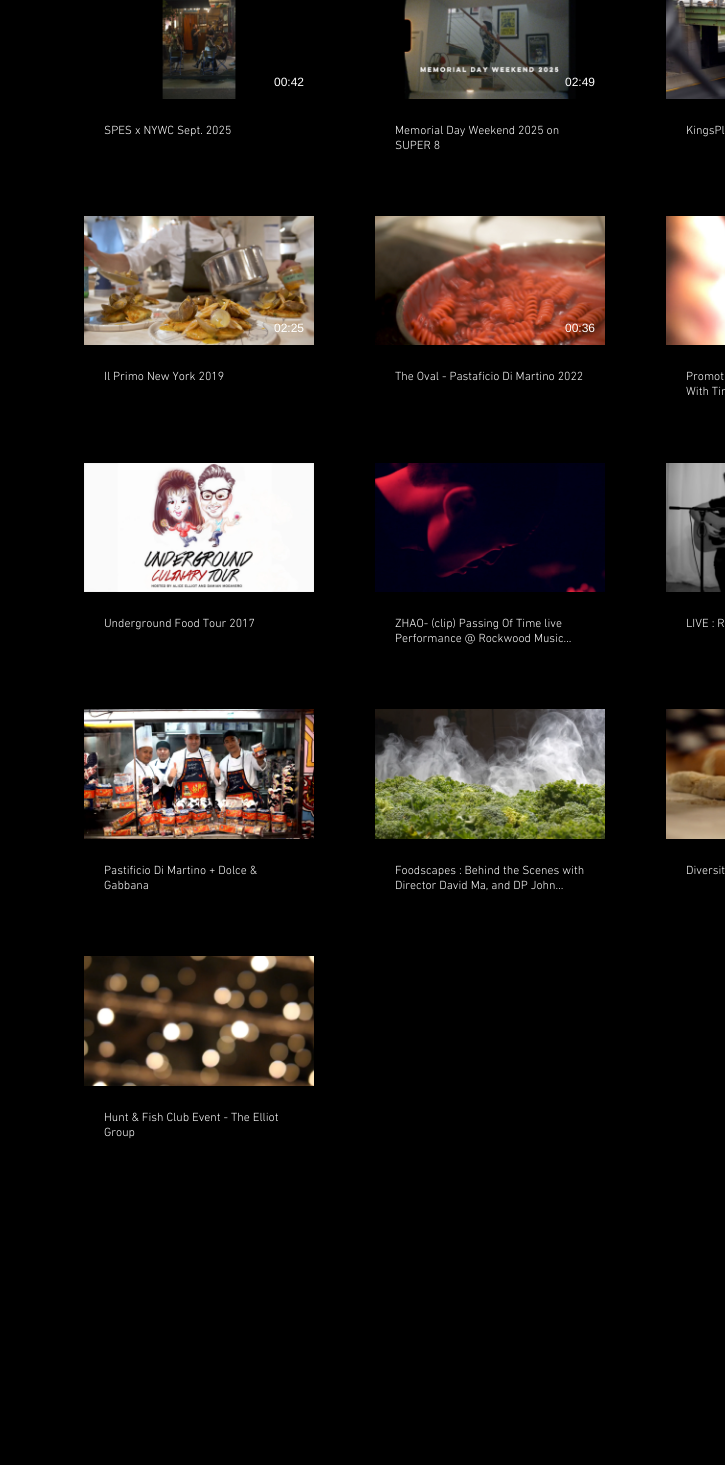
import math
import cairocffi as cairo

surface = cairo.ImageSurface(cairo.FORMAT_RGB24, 725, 1465)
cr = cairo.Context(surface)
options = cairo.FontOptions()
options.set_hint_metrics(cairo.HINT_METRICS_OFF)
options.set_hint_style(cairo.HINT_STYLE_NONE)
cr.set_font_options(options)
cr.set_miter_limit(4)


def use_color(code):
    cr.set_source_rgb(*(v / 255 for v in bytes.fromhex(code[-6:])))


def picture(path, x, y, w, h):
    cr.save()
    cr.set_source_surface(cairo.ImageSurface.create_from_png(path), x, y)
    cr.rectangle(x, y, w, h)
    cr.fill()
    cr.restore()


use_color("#000000")
cr.paint()
picture("img1.png", 84, 0, 230, 99)
picture("img2.png", 162, 0, 75, 99)
cr.select_font_face("Liberation Sans")
cr.set_font_size(12)
use_color("#ffffff")
cr.move_to(274, 86)
cr.show_text("00:42")
cr.select_font_face("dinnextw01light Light")
cr.move_to(104, 134)
cr.show_text("SPES x NYWC Sept. 2025")
picture("img3.png", 375, 0, 230, 99)
picture("img4.png", 403, 0, 167, 99)
cr.select_font_face("Liberation Sans")
cr.move_to(565, 86)
cr.show_text("02:49")
cr.select_font_face("dinnextw01light Light")
cr.move_to(395, 134)
cr.show_text("Memorial Day Weekend 2025 on")
cr.move_to(395, 149)
cr.show_text("SUPER 8")
picture("img5.png", 666, 95, 59, 4)
picture("img6.png", 666, 0, 59, 95)
cr.move_to(686, 134)
cr.show_text("KingsPl")
picture("img7.png", 84, 216, 230, 129)
cr.select_font_face("Liberation Sans")
cr.move_to(274, 332)
cr.show_text("02:25")
cr.select_font_face("dinnextw01light Light")
cr.move_to(104, 380)
cr.show_text("Il Primo New York 2019")
picture("img8.png", 375, 216, 230, 129)
cr.select_font_face("Liberation Sans")
cr.move_to(565, 332)
cr.show_text("00:36")
cr.select_font_face("dinnextw01light Light")
cr.move_to(395, 380)
cr.show_text("The Oval - Pastaficio Di Martino 2022")
picture("img9.png", 666, 216, 59, 129)
cr.move_to(686, 380)
cr.show_text("Promot")
cr.move_to(686, 395)
cr.show_text("With Tin")
picture("img10.png", 84, 463, 230, 129)
cr.move_to(104, 627)
cr.show_text("Underground Food Tour 2017")
picture("img11.png", 375, 463, 230, 129)
cr.move_to(395, 627)
cr.show_text("ZHAO- (clip) Passing Of Time live")
cr.move_to(395, 642)
cr.show_text("Performance @ Rockwood Music…")
picture("img12.png", 666, 463, 59, 129)
cr.move_to(686, 627)
cr.show_text("LIVE : R")
picture("img13.png", 84, 709, 230, 130)
cr.move_to(104, 874)
cr.show_text("Pastificio Di Martino + Dolce &")
cr.move_to(104, 889)
cr.show_text("Gabbana")
picture("img14.png", 375, 709, 230, 130)
cr.move_to(395, 874)
cr.show_text("Foodscapes : Behind the Scenes with")
cr.move_to(395, 889)
cr.show_text("Director David Ma, and DP John…")
picture("img15.png", 666, 709, 59, 130)
cr.move_to(686, 874)
cr.show_text("Diversit")
picture("img16.png", 84, 956, 230, 130)
cr.move_to(104, 1121)
cr.show_text("Hunt & Fish Club Event - The Elliot")
cr.move_to(104, 1136)
cr.show_text("Group")
surface.write_to_png("result.png")
